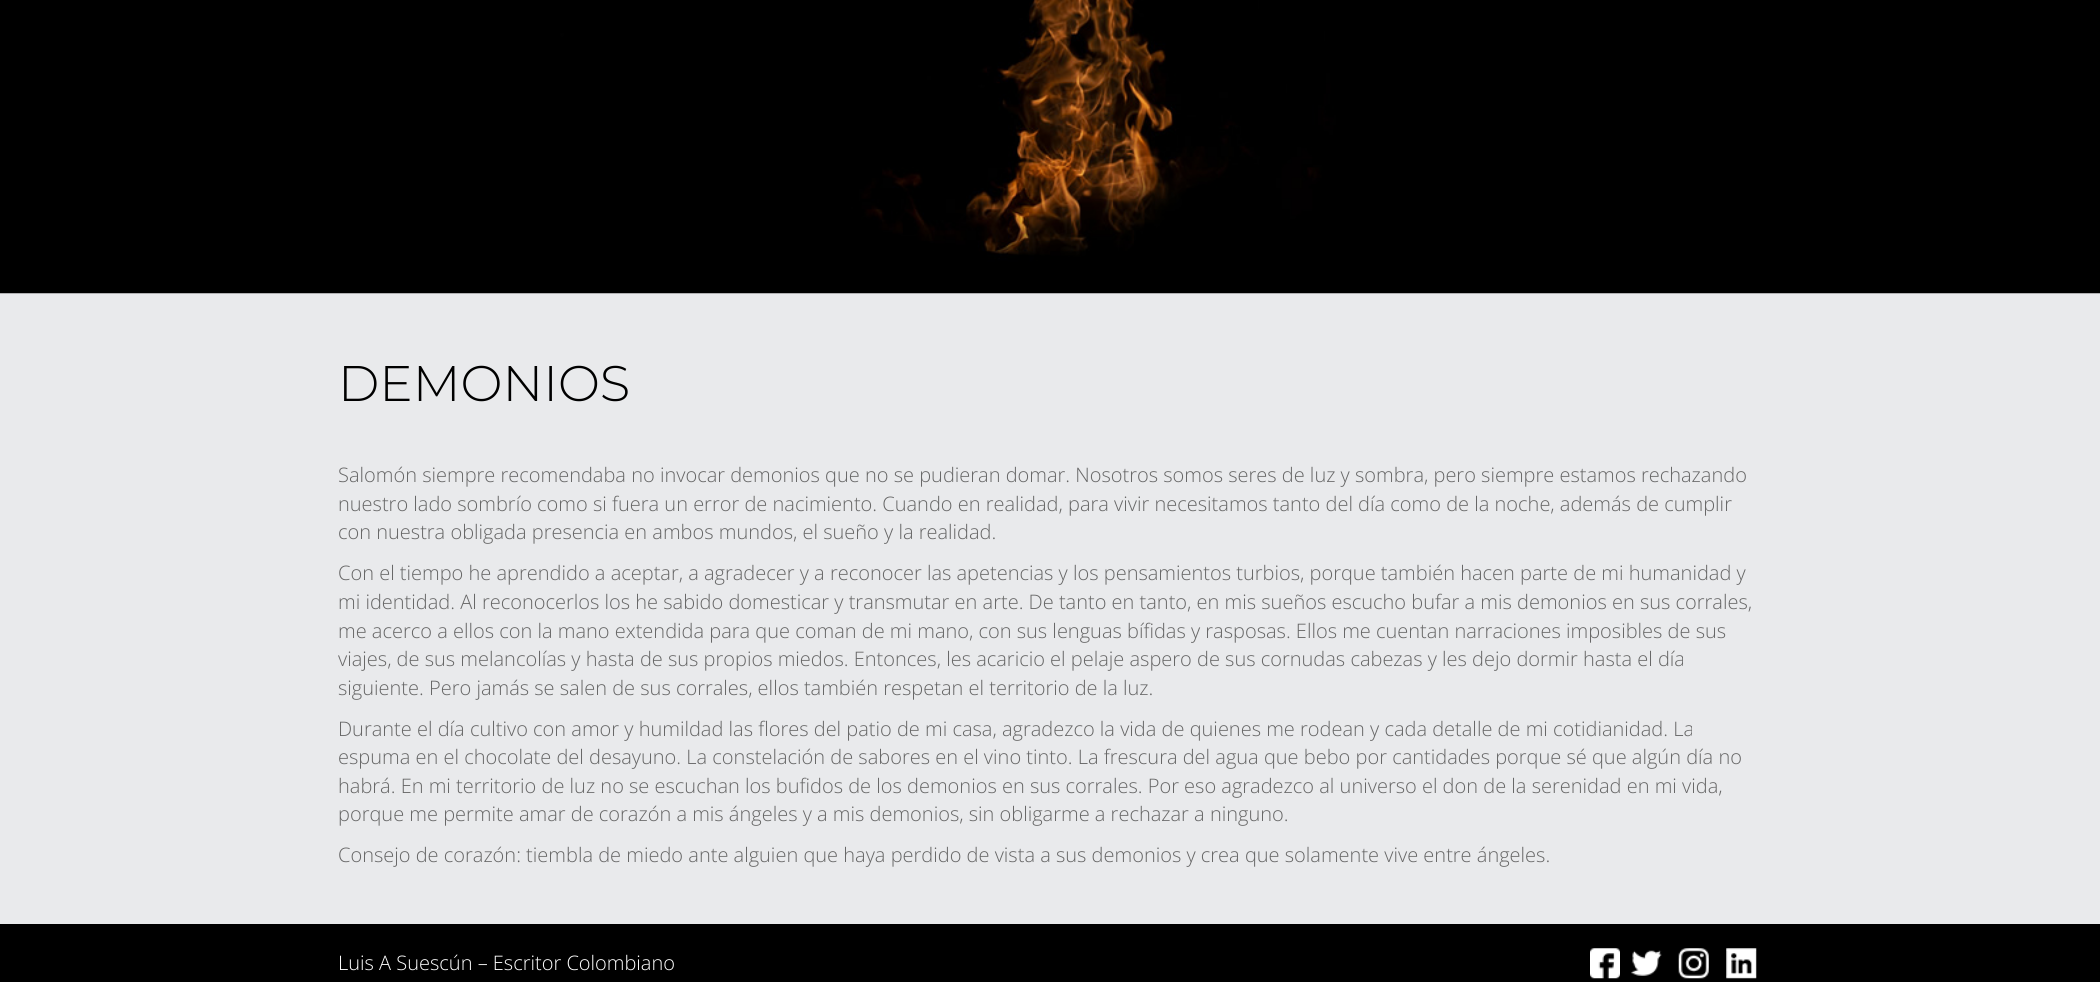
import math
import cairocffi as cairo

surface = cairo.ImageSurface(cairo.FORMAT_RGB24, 2100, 982)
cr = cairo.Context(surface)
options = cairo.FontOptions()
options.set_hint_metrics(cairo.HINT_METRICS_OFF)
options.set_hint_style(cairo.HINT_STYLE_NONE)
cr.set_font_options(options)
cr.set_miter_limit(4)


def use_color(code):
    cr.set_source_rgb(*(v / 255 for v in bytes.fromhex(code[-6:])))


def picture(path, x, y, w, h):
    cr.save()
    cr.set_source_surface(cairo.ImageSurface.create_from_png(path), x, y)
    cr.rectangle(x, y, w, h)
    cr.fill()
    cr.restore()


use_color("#e9eaec")
cr.paint()
picture("img1.png", 0, 0, 2100, 294)
cr.select_font_face("Montserrat Light")
cr.set_font_size(50)
use_color("#000000")
cr.move_to(338, 401)
cr.show_text("DEMONIOS")
cr.select_font_face("Open Sans Light")
cr.set_font_size(20)
use_color("#666666")
cr.move_to(338, 482)
cr.show_text("Salomón siempre recomendaba no invocar demonios que no se pudieran domar. Nosotros somos seres de luz y sombra, pero siempre estamos rechazando")
cr.move_to(338, 511)
cr.show_text("nuestro lado sombrío como si fuera un error de nacimiento. Cuando en realidad, para vivir necesitamos tanto del día como de la noche, además de cumplir")
cr.move_to(338, 539)
cr.show_text("con nuestra obligada presencia en ambos mundos, el sueño y la realidad.")
cr.move_to(338, 580)
cr.show_text("Con el tiempo he aprendido a aceptar, a agradecer y a reconocer las apetencias y los pensamientos turbios, porque también hacen parte de mi humanidad y")
cr.move_to(338, 609)
cr.show_text("mi identidad. Al reconocerlos los he sabido domesticar y transmutar en arte. De tanto en tanto, en mis sueños escucho bufar a mis demonios en sus corrales,")
cr.move_to(338, 638)
cr.show_text("me acerco a ellos con la mano extendida para que coman de mi mano, con sus lenguas bífidas y rasposas. Ellos me cuentan narraciones imposibles de sus")
cr.move_to(338, 666)
cr.show_text("viajes, de sus melancolías y hasta de sus propios miedos. Entonces, les acaricio el pelaje aspero de sus cornudas cabezas y les dejo dormir hasta el día")
cr.move_to(338, 695)
cr.show_text("siguiente. Pero jamás se salen de sus corrales, ellos también respetan el territorio de la luz.")
cr.move_to(338, 736)
cr.show_text("Durante el día cultivo con amor y humildad las flores del patio de mi casa, agradezco la vida de quienes me rodean y cada detalle de mi cotidianidad. La")
cr.move_to(338, 764)
cr.show_text("espuma en el chocolate del desayuno. La constelación de sabores en el vino tinto. La frescura del agua que bebo por cantidades porque sé que algún día no")
cr.move_to(338, 793)
cr.show_text("habrá. En mi territorio de luz no se escuchan los bufidos de los demonios en sus corrales. Por eso agradezco al universo el don de la serenidad en mi vida,")
cr.move_to(338, 821)
cr.show_text("porque me permite amar de corazón a mis ángeles y a mis demonios, sin obligarme a rechazar a ninguno.")
cr.move_to(338, 862)
cr.show_text("Consejo de corazón: tiembla de miedo ante alguien que haya perdido de vista a sus demonios y crea que solamente vive entre ángeles.")
use_color("#000000")
cr.rectangle(0, 924, 2100, 58)
cr.fill()
use_color("#ffffff")
cr.move_to(338, 970)
cr.show_text("Luis A Suescún – Escritor Colombiano")
picture("img2.png", 1590, 948, 30, 31)
picture("img3.png", 1631, 950, 31, 26)
picture("img4.png", 1678, 948, 31, 31)
picture("img5.png", 1726, 948, 31, 31)
surface.write_to_png("result.png")
